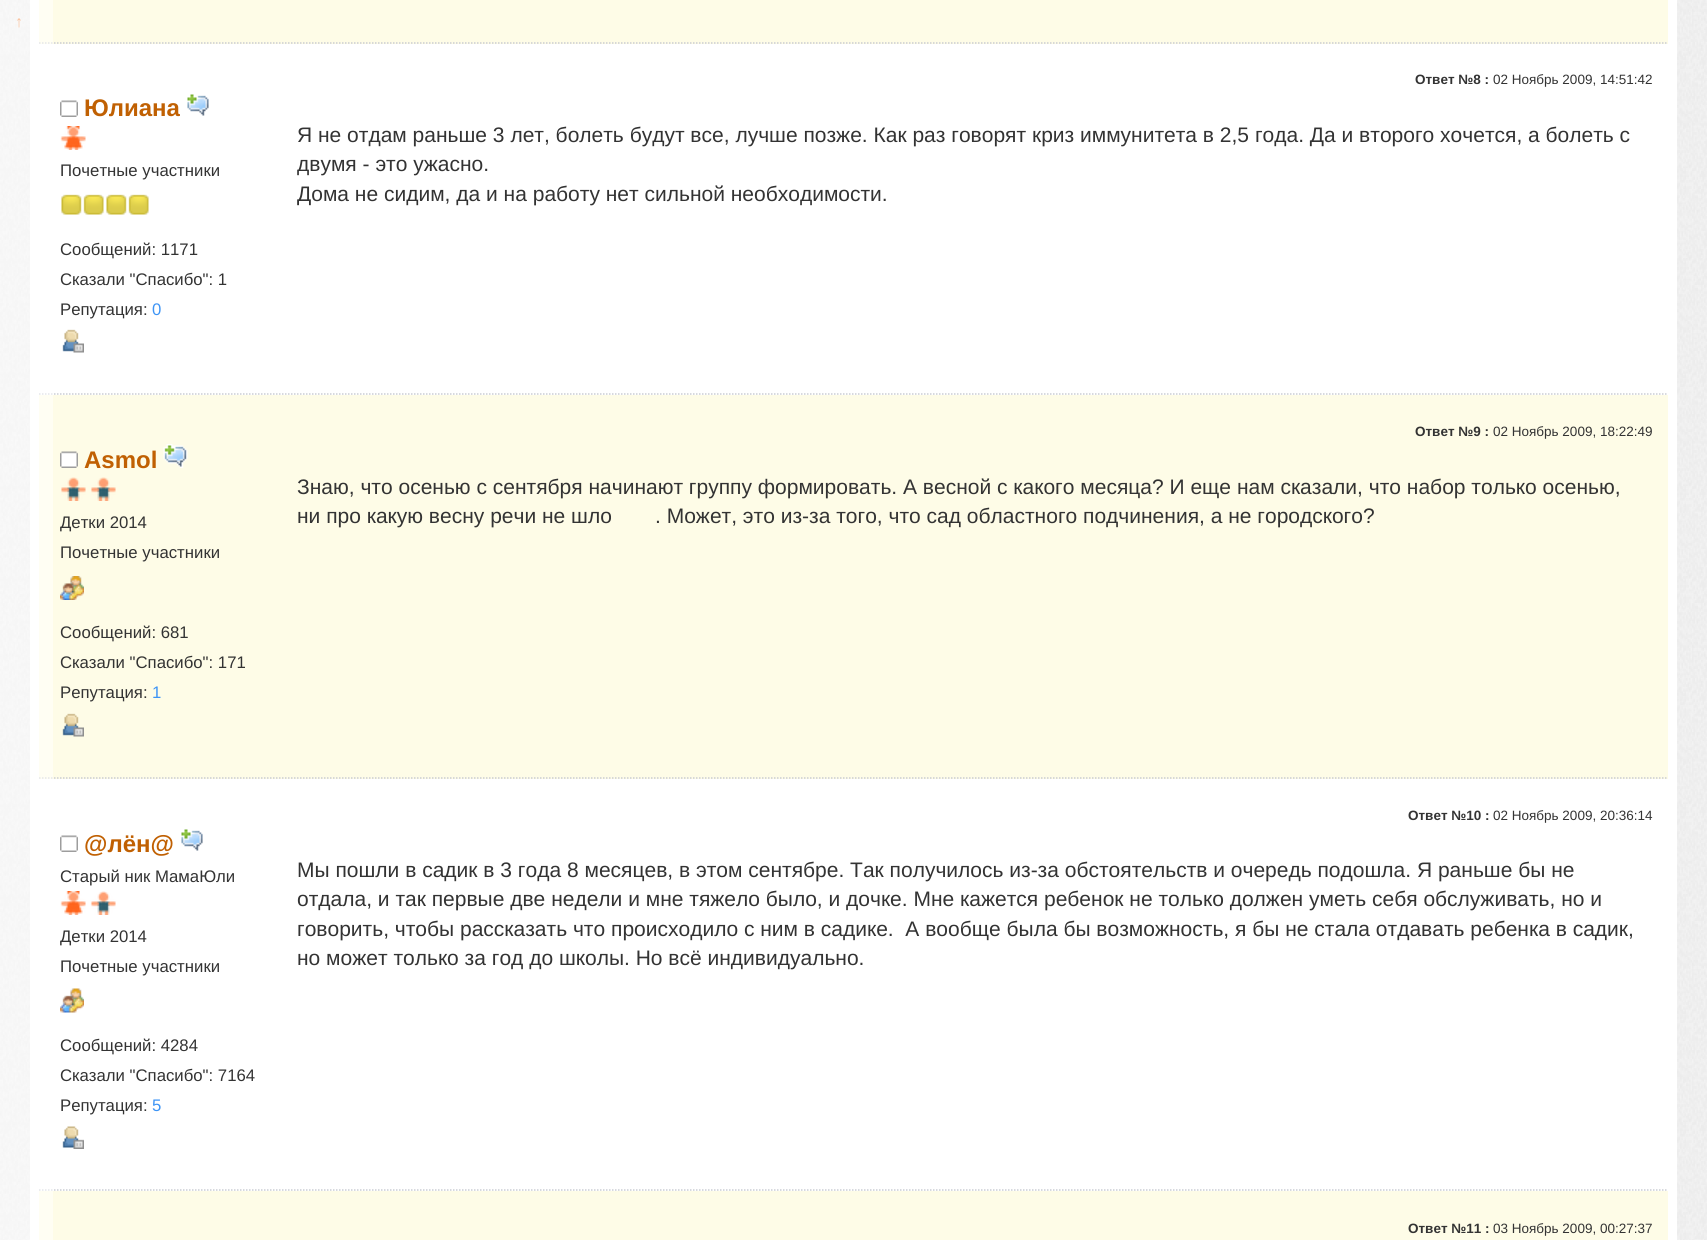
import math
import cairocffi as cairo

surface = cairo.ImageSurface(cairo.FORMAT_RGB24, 1707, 1240)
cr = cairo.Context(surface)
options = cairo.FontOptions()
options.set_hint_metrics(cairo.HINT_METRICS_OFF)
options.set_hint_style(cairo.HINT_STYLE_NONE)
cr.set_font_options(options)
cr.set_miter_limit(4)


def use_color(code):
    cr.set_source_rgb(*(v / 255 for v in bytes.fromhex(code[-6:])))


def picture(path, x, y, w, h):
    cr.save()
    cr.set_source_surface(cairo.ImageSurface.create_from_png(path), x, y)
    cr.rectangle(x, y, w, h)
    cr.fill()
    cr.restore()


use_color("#ffffff")
cr.paint()
picture("img1.png", 0, 0, 1707, 1240)
use_color("#ffffff")
cr.rectangle(30, 0, 1647, 1240)
cr.fill()
use_color("#fefce7")
cr.rectangle(39, 0, 1629, 44)
cr.fill()
cr.new_path()
cr.move_to(39, 43)
cr.line_to(1668, 43)
use_color("#cacdd3")
cr.set_line_width(1.5)
cr.set_dash([1.5, 1.5])
cr.stroke()
cr.new_path()
cr.move_to(39, 394)
cr.line_to(1668, 394)
cr.stroke()
use_color("#fefce7")
cr.rectangle(39, 395, 1629, 384)
cr.fill()
cr.new_path()
cr.move_to(39, 778)
cr.line_to(1668, 778)
use_color("#cacdd3")
cr.stroke()
cr.new_path()
cr.move_to(39, 1190)
cr.line_to(1668, 1190)
cr.stroke()
use_color("#fefce7")
cr.rectangle(39, 1191, 1629, 49)
cr.fill()
cr.set_source_rgba(1, 1, 1, 0.5)
cr.rectangle(0, 0, 53, 1240)
cr.fill()
cr.select_font_face("Liberation Sans", cairo.FONT_SLANT_NORMAL, cairo.FONT_WEIGHT_BOLD)
cr.set_font_size(16)
use_color("#fbc19c")
cr.move_to(15, 27)
cr.show_text("↑")
picture("img2.png", 60, 100, 18, 17)
cr.set_font_size(24)
use_color("#c06002")
cr.move_to(84, 116)
cr.show_text("Юлиана")
picture("img3.png", 187, 94, 22, 22)
picture("img4.png", 60, 126, 26, 24)
cr.select_font_face("Liberation Sans")
cr.set_font_size(16.75)
use_color("#333333")
cr.move_to(60, 176)
cr.show_text("Почетные участники")
picture("img5.png", 61, 194, 21, 21)
picture("img6.png", 83, 194, 21, 21)
picture("img5.png", 106, 194, 21, 21)
picture("img6.png", 128, 194, 21, 21)
cr.move_to(60, 255)
cr.show_text("Сообщений: 1171")
cr.move_to(60, 285)
cr.show_text("Сказали \"Спасибо\": 1")
cr.move_to(60, 315)
cr.show_text("Репутация:")
use_color("#3d94f5")
cr.move_to(152, 315)
cr.show_text("0")
picture("img7.png", 62, 329, 22, 24)
cr.select_font_face("Liberation Sans", cairo.FONT_SLANT_NORMAL, cairo.FONT_WEIGHT_BOLD)
cr.set_font_size(13.5)
use_color("#333333")
cr.move_to(1415, 84)
cr.show_text("Ответ №8 :")
cr.select_font_face("Liberation Sans")
cr.move_to(1493, 84)
cr.show_text("02 Ноябрь 2009, 14:51:42")
cr.set_font_size(21)
cr.move_to(297, 142)
cr.show_text("Я не отдам раньше 3 лет, болеть будут все, лучше позже. Как раз говорят криз иммунитета в 2,5 года. Да и второго хочется, а болеть с")
cr.move_to(297, 171)
cr.show_text("двумя - это ужасно.")
cr.move_to(297, 201)
cr.show_text("Дома не сидим, да и на работу нет сильной необходимости.")
picture("img8.png", 60, 451, 18, 17)
cr.select_font_face("Liberation Sans", cairo.FONT_SLANT_NORMAL, cairo.FONT_WEIGHT_BOLD)
cr.set_font_size(24)
use_color("#c06002")
cr.move_to(84, 468)
cr.show_text("Asmol")
picture("img9.png", 163, 444, 25, 24)
picture("img10.png", 61, 477, 25, 24)
picture("img10.png", 91, 477, 25, 24)
cr.select_font_face("Liberation Sans")
cr.set_font_size(16.75)
use_color("#333333")
cr.move_to(60, 528)
cr.show_text("Детки 2014")
cr.move_to(60, 558)
cr.show_text("Почетные участники")
picture("img11.png", 60, 576, 24, 24)
cr.move_to(60, 638)
cr.show_text("Сообщений: 681")
cr.move_to(60, 668)
cr.show_text("Сказали \"Спасибо\": 171")
cr.move_to(60, 698)
cr.show_text("Репутация:")
use_color("#3d94f5")
cr.move_to(152, 698)
cr.show_text("1")
picture("img12.png", 62, 713, 22, 24)
cr.select_font_face("Liberation Sans", cairo.FONT_SLANT_NORMAL, cairo.FONT_WEIGHT_BOLD)
cr.set_font_size(13.5)
use_color("#333333")
cr.move_to(1415, 436)
cr.show_text("Ответ №9 :")
cr.select_font_face("Liberation Sans")
cr.move_to(1493, 436)
cr.show_text("02 Ноябрь 2009, 18:22:49")
cr.set_font_size(21)
cr.move_to(297, 494)
cr.show_text("Знаю, что осенью с сентября начинают группу формировать. А весной с какого месяца? И еще нам сказали, что набор только осенью,")
cr.move_to(297, 523)
cr.show_text("ни про какую весну речи не шло")
cr.move_to(655, 523)
cr.show_text(". Может, это из-за того, что сад областного подчинения, а не городского?")
picture("img2.png", 60, 835, 18, 17)
cr.select_font_face("Liberation Sans", cairo.FONT_SLANT_NORMAL, cairo.FONT_WEIGHT_BOLD)
cr.set_font_size(24)
use_color("#c06002")
cr.move_to(84, 852)
cr.show_text("@лён@")
picture("img3.png", 181, 829, 22, 22)
cr.select_font_face("Liberation Sans")
cr.set_font_size(16.75)
use_color("#333333")
cr.move_to(60, 882)
cr.show_text("Старый ник МамаЮли")
picture("img4.png", 60, 891, 26, 24)
picture("img13.png", 90, 891, 26, 24)
cr.move_to(60, 942)
cr.show_text("Детки 2014")
cr.move_to(60, 972)
cr.show_text("Почетные участники")
picture("img14.png", 60, 988, 24, 25)
cr.move_to(60, 1051)
cr.show_text("Сообщений: 4284")
cr.move_to(60, 1081)
cr.show_text("Сказали \"Спасибо\": 7164")
cr.move_to(60, 1111)
cr.show_text("Репутация:")
use_color("#3d94f5")
cr.move_to(152, 1111)
cr.show_text("5")
picture("img15.png", 62, 1126, 22, 23)
cr.select_font_face("Liberation Sans", cairo.FONT_SLANT_NORMAL, cairo.FONT_WEIGHT_BOLD)
cr.set_font_size(13.5)
use_color("#333333")
cr.move_to(1408, 820)
cr.show_text("Ответ №10 :")
cr.select_font_face("Liberation Sans")
cr.move_to(1493, 820)
cr.show_text("02 Ноябрь 2009, 20:36:14")
cr.set_font_size(21)
cr.move_to(297, 877)
cr.show_text("Мы пошли в садик в 3 года 8 месяцев, в этом сентябре. Так получилось из-за обстоятельств и очередь подошла. Я раньше бы не")
cr.move_to(297, 906)
cr.show_text("отдала, и так первые две недели и мне тяжело было, и дочке. Мне кажется ребенок не только должен уметь себя обслуживать, но и")
cr.move_to(297, 936)
cr.show_text("говорить, чтобы рассказать что происходило с ним в садике.  А вообще была бы возможность, я бы не стала отдавать ребенка в садик,")
cr.move_to(297, 965)
cr.show_text("но может только за год до школы. Но всё индивидуально.")
cr.select_font_face("Liberation Sans", cairo.FONT_SLANT_NORMAL, cairo.FONT_WEIGHT_BOLD)
cr.set_font_size(13.5)
cr.move_to(1408, 1233)
cr.show_text("Ответ №11 :")
cr.select_font_face("Liberation Sans")
cr.move_to(1493, 1233)
cr.show_text("03 Ноябрь 2009, 00:27:37")
surface.write_to_png("result.png")
